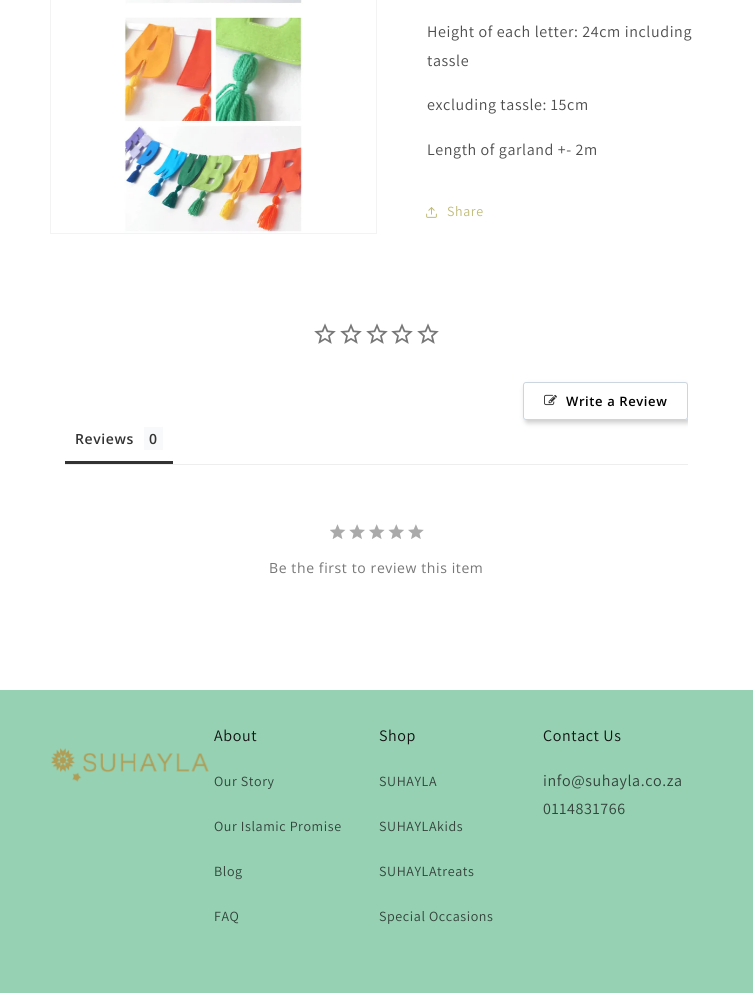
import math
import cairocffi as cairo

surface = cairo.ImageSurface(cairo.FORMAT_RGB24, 753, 993)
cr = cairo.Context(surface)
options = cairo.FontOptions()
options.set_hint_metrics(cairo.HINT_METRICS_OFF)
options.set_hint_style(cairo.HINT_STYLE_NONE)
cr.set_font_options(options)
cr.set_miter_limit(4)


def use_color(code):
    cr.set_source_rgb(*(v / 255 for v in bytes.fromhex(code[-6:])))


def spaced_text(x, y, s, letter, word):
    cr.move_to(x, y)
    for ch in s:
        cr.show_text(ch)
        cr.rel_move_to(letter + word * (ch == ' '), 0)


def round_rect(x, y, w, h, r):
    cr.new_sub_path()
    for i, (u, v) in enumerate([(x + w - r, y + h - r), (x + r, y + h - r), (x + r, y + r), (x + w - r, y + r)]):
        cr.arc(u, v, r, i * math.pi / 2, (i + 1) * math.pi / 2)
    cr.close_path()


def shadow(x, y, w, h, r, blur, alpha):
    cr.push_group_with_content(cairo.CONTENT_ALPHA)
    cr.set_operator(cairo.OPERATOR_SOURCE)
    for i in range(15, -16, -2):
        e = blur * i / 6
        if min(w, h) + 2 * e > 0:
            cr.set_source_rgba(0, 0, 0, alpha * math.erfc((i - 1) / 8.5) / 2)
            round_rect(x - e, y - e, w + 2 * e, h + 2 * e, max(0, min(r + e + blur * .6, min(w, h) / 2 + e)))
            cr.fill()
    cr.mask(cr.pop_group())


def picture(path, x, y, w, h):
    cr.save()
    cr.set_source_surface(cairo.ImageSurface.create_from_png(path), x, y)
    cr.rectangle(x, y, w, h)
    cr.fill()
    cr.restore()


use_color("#ffffff")
cr.paint()
cr.rectangle(50.5, -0.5, 326, 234)
use_color("#f3f3f3")
cr.set_line_width(1)
cr.stroke()
picture("img1.png", 124, 0, 179, 233)
cr.select_font_face("Assistant")
cr.set_font_size(16)
use_color("#4d4d4d")
spaced_text(427, 37, "Height of each letter: 24cm including", 0.6, 0)
spaced_text(427, 66, "tassle", 0.6, 0)
spaced_text(427, 110, "excluding tassle: 15cm", 0.6, 0)
spaced_text(427, 155, "Length of garland +- 2m", 0.6, 0)
picture("img2.png", 426, 207, 11, 11)
cr.set_font_size(14)
use_color("#c0bc7a")
spaced_text(447, 216, "Share", 0.6, 0)
picture("img3.png", 314, 323, 22, 21)
picture("img3.png", 340, 323, 22, 21)
picture("img3.png", 366, 323, 22, 21)
picture("img3.png", 391, 323, 22, 21)
picture("img3.png", 417, 323, 22, 21)
cr.save()
cr.rectangle(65, 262, 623, 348)
cr.clip()
cr.set_fill_rule(cairo.FILL_RULE_EVEN_ODD)
cr.new_path()
cr.move_to(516, 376)
cr.line_to(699, 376)
cr.line_to(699, 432)
cr.line_to(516, 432)
cr.close_path()
cr.move_to(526, 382)
cr.line_to(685, 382)
cr.curve_to(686.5, 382, 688, 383.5, 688, 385)
cr.line_to(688, 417)
cr.curve_to(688, 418.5, 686.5, 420, 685, 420)
cr.line_to(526, 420)
cr.curve_to(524.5, 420, 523, 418.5, 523, 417)
cr.line_to(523, 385)
cr.curve_to(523, 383.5, 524.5, 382, 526, 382)
cr.close_path()
cr.clip()
use_color("#888888")
shadow(525, 385, 165, 38, 3, 2.5, 0.42)
cr.restore()
round_rect(523.5, 382.5, 164, 37, 2.5)
use_color("#ccd6e0")
cr.stroke()
picture("img4.png", 544, 394, 13, 12)
cr.select_font_face("Open Sans SemiBold")
cr.set_font_size(13)
use_color("#000000")
spaced_text(566, 406, "Write a Review", 0.6, 0)
use_color("#eeeeee")
cr.rectangle(65, 464, 623, 1)
cr.fill()
use_color("#333333")
cr.rectangle(65, 461, 108, 3)
cr.fill()
cr.set_font_size(14)
spaced_text(75, 444, "Reviews", 0.6, 0)
use_color("#f8f9fa")
cr.rectangle(144, 427, 19, 23)
cr.fill()
use_color("#333333")
spaced_text(149, 444, "0", 0.6, 0)
picture("img5.png", 330, 524, 94, 15)
cr.select_font_face("Open Sans")
use_color("#777777")
spaced_text(269, 573, "Be the first to review this item", 0.6, 0)
use_color("#95d1b2")
cr.rectangle(0, 690, 753, 303)
cr.fill()
picture("img6.png", 51, 748, 158, 34)
cr.select_font_face("Assistant")
cr.set_font_size(16)
use_color("#121212")
spaced_text(214, 741, "About", 0.6, 0)
cr.set_font_size(14)
use_color("#33423a")
spaced_text(214, 786, "Our Story", 0.6, 0)
spaced_text(214, 831, "Our Islamic Promise", 0.6, 0)
spaced_text(214, 876, "Blog", 0.6, 0)
spaced_text(214, 921, "FAQ", 0.6, 0)
cr.set_font_size(16)
use_color("#121212")
spaced_text(379, 741, "Shop", 0.6, 0)
cr.set_font_size(14)
use_color("#33423a")
spaced_text(379, 786, "SUHAYLA", 0.6, 0)
spaced_text(379, 831, "SUHAYLAkids", 0.6, 0)
spaced_text(379, 876, "SUHAYLAtreats", 0.6, 0)
spaced_text(379, 921, "Special Occasions", 0.6, 0)
cr.set_font_size(16)
use_color("#121212")
spaced_text(543, 741, "Contact Us", 0.6, 0)
use_color("#33423a")
spaced_text(543, 786, "info@suhayla.co.za", 0.6, 0)
spaced_text(543, 814, "0114831766", 0.6, 0)
surface.write_to_png("result.png")
